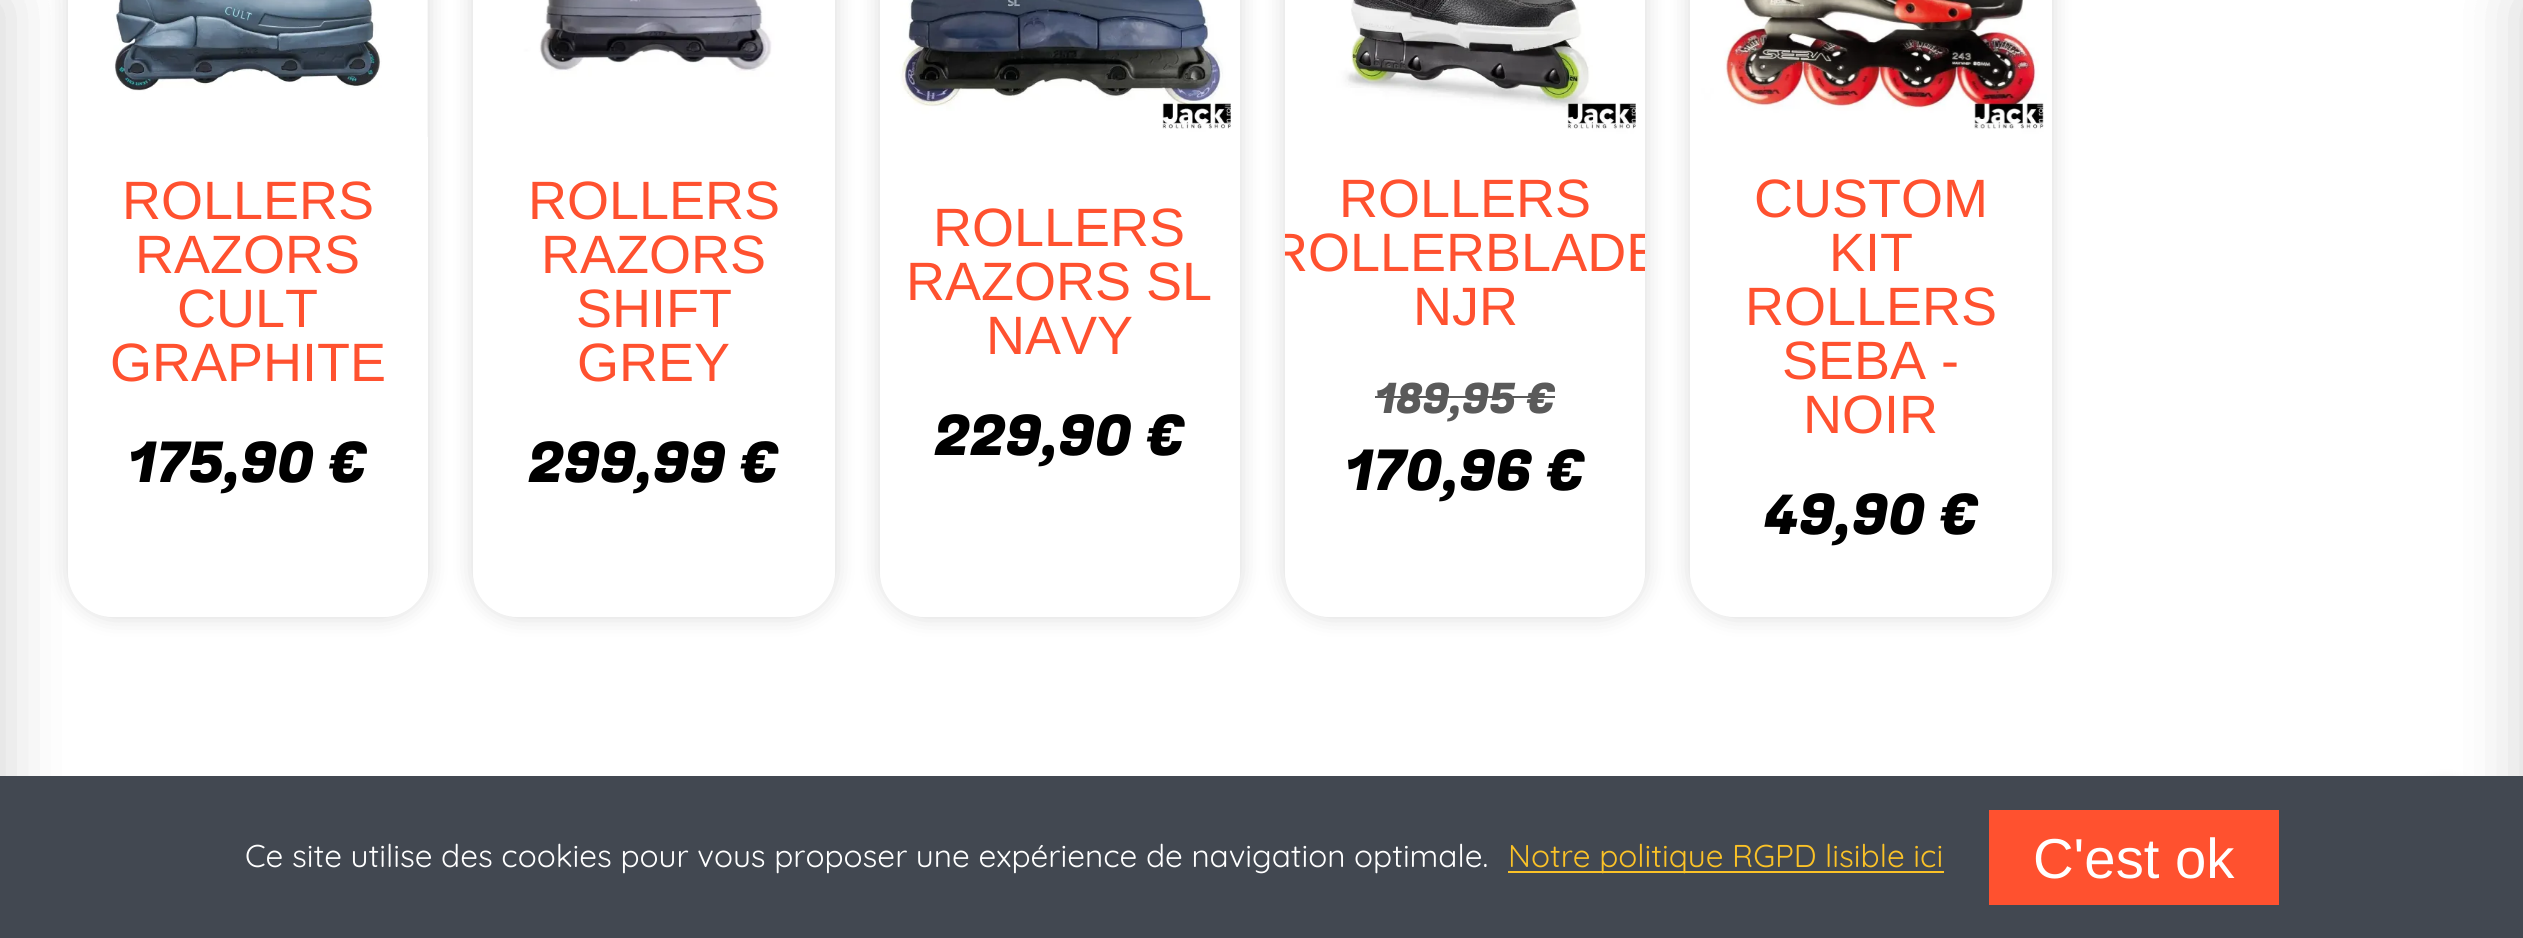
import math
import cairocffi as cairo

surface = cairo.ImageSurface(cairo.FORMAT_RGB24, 2523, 938)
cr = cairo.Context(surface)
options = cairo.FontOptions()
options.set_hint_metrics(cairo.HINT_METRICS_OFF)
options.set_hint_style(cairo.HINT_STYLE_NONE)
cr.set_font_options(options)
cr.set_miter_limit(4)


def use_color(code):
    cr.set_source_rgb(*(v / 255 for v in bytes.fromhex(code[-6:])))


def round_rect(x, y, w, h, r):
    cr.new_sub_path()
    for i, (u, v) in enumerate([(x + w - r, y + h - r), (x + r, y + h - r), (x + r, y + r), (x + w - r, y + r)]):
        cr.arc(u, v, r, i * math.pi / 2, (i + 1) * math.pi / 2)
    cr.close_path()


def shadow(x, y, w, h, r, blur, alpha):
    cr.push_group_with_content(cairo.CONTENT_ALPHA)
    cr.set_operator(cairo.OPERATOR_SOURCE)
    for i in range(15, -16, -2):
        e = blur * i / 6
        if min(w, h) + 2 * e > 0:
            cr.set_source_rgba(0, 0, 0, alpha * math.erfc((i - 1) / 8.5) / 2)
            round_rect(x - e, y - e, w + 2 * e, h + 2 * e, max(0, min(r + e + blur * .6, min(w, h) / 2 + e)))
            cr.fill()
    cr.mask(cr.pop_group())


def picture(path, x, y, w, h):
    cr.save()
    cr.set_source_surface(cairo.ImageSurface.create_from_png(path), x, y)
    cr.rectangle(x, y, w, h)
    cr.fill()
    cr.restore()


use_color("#ffffff")
cr.paint()
cr.save()
cr.set_fill_rule(cairo.FILL_RULE_EVEN_ODD)
cr.new_path()
cr.move_to(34, 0)
cr.line_to(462, 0)
cr.line_to(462, 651)
cr.line_to(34, 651)
cr.close_path()
cr.move_to(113, -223)
cr.line_to(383, -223)
cr.curve_to(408, -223, 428, -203, 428, -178)
cr.line_to(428, 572)
cr.curve_to(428, 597, 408, 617, 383, 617)
cr.line_to(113, 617)
cr.curve_to(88, 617, 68, 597, 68, 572)
cr.line_to(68, -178)
cr.curve_to(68, -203, 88, -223, 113, -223)
cr.close_path()
cr.clip()
use_color("#000000")
shadow(68, -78, 360, 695, 45, 11, 0.15)
cr.restore()
picture("img1.png", 68, 0, 359, 137)
use_color("#000000")
shadow(-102, 0, 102, 938, 0, 34, 0.1)
shadow(-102, 0, 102, 938, 0, 34, 0.1)
shadow(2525, 0, 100, 938, 0, 34, 0.1)
cr.set_source_rgba(0.4, 0.4, 0.4, 0.05)
cr.rectangle(427, 0, 1, 137)
cr.fill()
cr.select_font_face("Liberation Sans")
cr.set_font_size(54)
use_color("#ff512f")
cr.move_to(122, 219)
cr.show_text("ROLLERS")
cr.move_to(135, 273)
cr.show_text("RAZORS")
cr.move_to(177, 327)
cr.show_text("CULT")
cr.move_to(110, 381)
cr.show_text("GRAPHITE")
cr.select_font_face("Fugaz One")
cr.set_font_size(56.25)
use_color("#000000")
cr.move_to(128, 482)
cr.show_text("175,90 €")
cr.save()
cr.set_fill_rule(cairo.FILL_RULE_EVEN_ODD)
cr.new_path()
cr.move_to(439, 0)
cr.line_to(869, 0)
cr.line_to(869, 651)
cr.line_to(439, 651)
cr.close_path()
cr.move_to(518, -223)
cr.line_to(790, -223)
cr.curve_to(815, -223, 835, -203, 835, -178)
cr.line_to(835, 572)
cr.curve_to(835, 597, 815, 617, 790, 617)
cr.line_to(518, 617)
cr.curve_to(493, 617, 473, 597, 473, 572)
cr.line_to(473, -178)
cr.curve_to(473, -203, 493, -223, 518, -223)
cr.close_path()
cr.clip()
use_color("#000000")
shadow(473, -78, 362, 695, 45, 11, 0.15)
cr.restore()
picture("img2.png", 473, 0, 362, 137)
cr.select_font_face("Liberation Sans")
cr.set_font_size(54)
use_color("#ff512f")
cr.move_to(528, 219)
cr.show_text("ROLLERS")
cr.move_to(541, 273)
cr.show_text("RAZORS")
cr.move_to(576, 327)
cr.show_text("SHIFT")
cr.move_to(577, 381)
cr.show_text("GREY")
cr.select_font_face("Fugaz One")
cr.set_font_size(56.25)
use_color("#000000")
cr.move_to(528, 482)
cr.show_text("299,99 €")
cr.save()
cr.set_fill_rule(cairo.FILL_RULE_EVEN_ODD)
cr.new_path()
cr.move_to(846, 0)
cr.line_to(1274, 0)
cr.line_to(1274, 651)
cr.line_to(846, 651)
cr.close_path()
cr.move_to(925, -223)
cr.line_to(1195, -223)
cr.curve_to(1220, -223, 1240, -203, 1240, -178)
cr.line_to(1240, 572)
cr.curve_to(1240, 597, 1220, 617, 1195, 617)
cr.line_to(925, 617)
cr.curve_to(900, 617, 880, 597, 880, 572)
cr.line_to(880, -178)
cr.curve_to(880, -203, 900, -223, 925, -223)
cr.close_path()
cr.clip()
use_color("#000000")
shadow(880, -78, 360, 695, 45, 11, 0.15)
cr.restore()
picture("img3.png", 880, 0, 360, 137)
cr.select_font_face("Liberation Sans")
cr.set_font_size(54)
use_color("#ff512f")
cr.move_to(933, 246)
cr.show_text("ROLLERS")
cr.move_to(906, 300)
cr.show_text("RAZORS SL")
cr.move_to(986, 354)
cr.show_text("NAVY")
cr.select_font_face("Fugaz One")
cr.set_font_size(56.25)
use_color("#000000")
cr.move_to(934, 455)
cr.show_text("229,90 €")
cr.save()
cr.set_fill_rule(cairo.FILL_RULE_EVEN_ODD)
cr.new_path()
cr.move_to(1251, 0)
cr.line_to(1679, 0)
cr.line_to(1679, 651)
cr.line_to(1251, 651)
cr.close_path()
cr.move_to(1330, -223)
cr.line_to(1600, -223)
cr.curve_to(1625, -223, 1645, -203, 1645, -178)
cr.line_to(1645, 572)
cr.curve_to(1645, 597, 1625, 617, 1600, 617)
cr.line_to(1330, 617)
cr.curve_to(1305, 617, 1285, 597, 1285, 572)
cr.line_to(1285, -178)
cr.curve_to(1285, -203, 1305, -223, 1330, -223)
cr.close_path()
cr.clip()
use_color("#000000")
shadow(1285, -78, 360, 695, 45, 11, 0.15)
cr.restore()
picture("img4.png", 1285, 0, 360, 137)
cr.select_font_face("Liberation Sans")
cr.set_font_size(54)
use_color("#ff512f")
cr.move_to(1339, 217)
cr.show_text("ROLLERS")
cr.save()
round_rect(1285, -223, 360, 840, 45)
cr.clip()
cr.move_to(1269, 271)
cr.show_text("ROLLERBLADE")
cr.restore()
cr.move_to(1413, 325)
cr.show_text("NJR")
cr.select_font_face("Fugaz One")
cr.set_font_size(42)
use_color("#5a5a5a")
cr.move_to(1375, 413)
cr.show_text("189,95 €")
cr.rectangle(1375, 396, 180, 2)
cr.fill()
cr.set_font_size(56.25)
use_color("#000000")
cr.move_to(1345, 490)
cr.show_text("170,96 €")
cr.save()
cr.set_fill_rule(cairo.FILL_RULE_EVEN_ODD)
cr.new_path()
cr.move_to(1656, 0)
cr.line_to(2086, 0)
cr.line_to(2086, 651)
cr.line_to(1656, 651)
cr.close_path()
cr.move_to(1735, -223)
cr.line_to(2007, -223)
cr.curve_to(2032, -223, 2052, -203, 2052, -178)
cr.line_to(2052, 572)
cr.curve_to(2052, 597, 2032, 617, 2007, 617)
cr.line_to(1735, 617)
cr.curve_to(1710, 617, 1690, 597, 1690, 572)
cr.line_to(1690, -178)
cr.curve_to(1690, -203, 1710, -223, 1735, -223)
cr.close_path()
cr.clip()
use_color("#000000")
shadow(1690, -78, 362, 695, 45, 11, 0.15)
cr.restore()
picture("img5.png", 1690, 0, 362, 137)
cr.select_font_face("Liberation Sans")
cr.set_font_size(54)
use_color("#ff512f")
cr.move_to(1754, 217)
cr.show_text("CUSTOM")
cr.move_to(1829, 271)
cr.show_text("KIT")
cr.move_to(1745, 325)
cr.show_text("ROLLERS")
cr.move_to(1782, 379)
cr.show_text("SEBA -")
cr.move_to(1803, 433)
cr.show_text("NOIR")
cr.select_font_face("Fugaz One")
cr.set_font_size(56.25)
use_color("#000000")
cr.move_to(1764, 534)
cr.show_text("49,90 €")
use_color("#000000")
shadow(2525, 0, 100, 938, 0, 34, 0.1)
shadow(2390, 781, 112, 112, 56, 5.5, 0.17)
use_color("#424851")
cr.rectangle(0, 776, 2523, 162)
cr.fill()
cr.select_font_face("Quicksand")
cr.set_font_size(31.5)
use_color("#ffffff")
cr.move_to(245, 867)
cr.show_text("Ce site utilise des cookies pour vous proposer une expérience de navigation optimale.")
use_color("#fbc227")
cr.rectangle(1508, 871, 436, 2)
cr.fill()
cr.move_to(1508, 867)
cr.show_text("Notre politique RGPD lisible ici")
use_color("#ff512f")
cr.rectangle(1989, 810, 290, 95)
cr.fill()
cr.select_font_face("Liberation Sans")
cr.set_font_size(56.25)
use_color("#ffffff")
cr.move_to(2033, 878)
cr.show_text("C'est ok")
surface.write_to_png("result.png")
